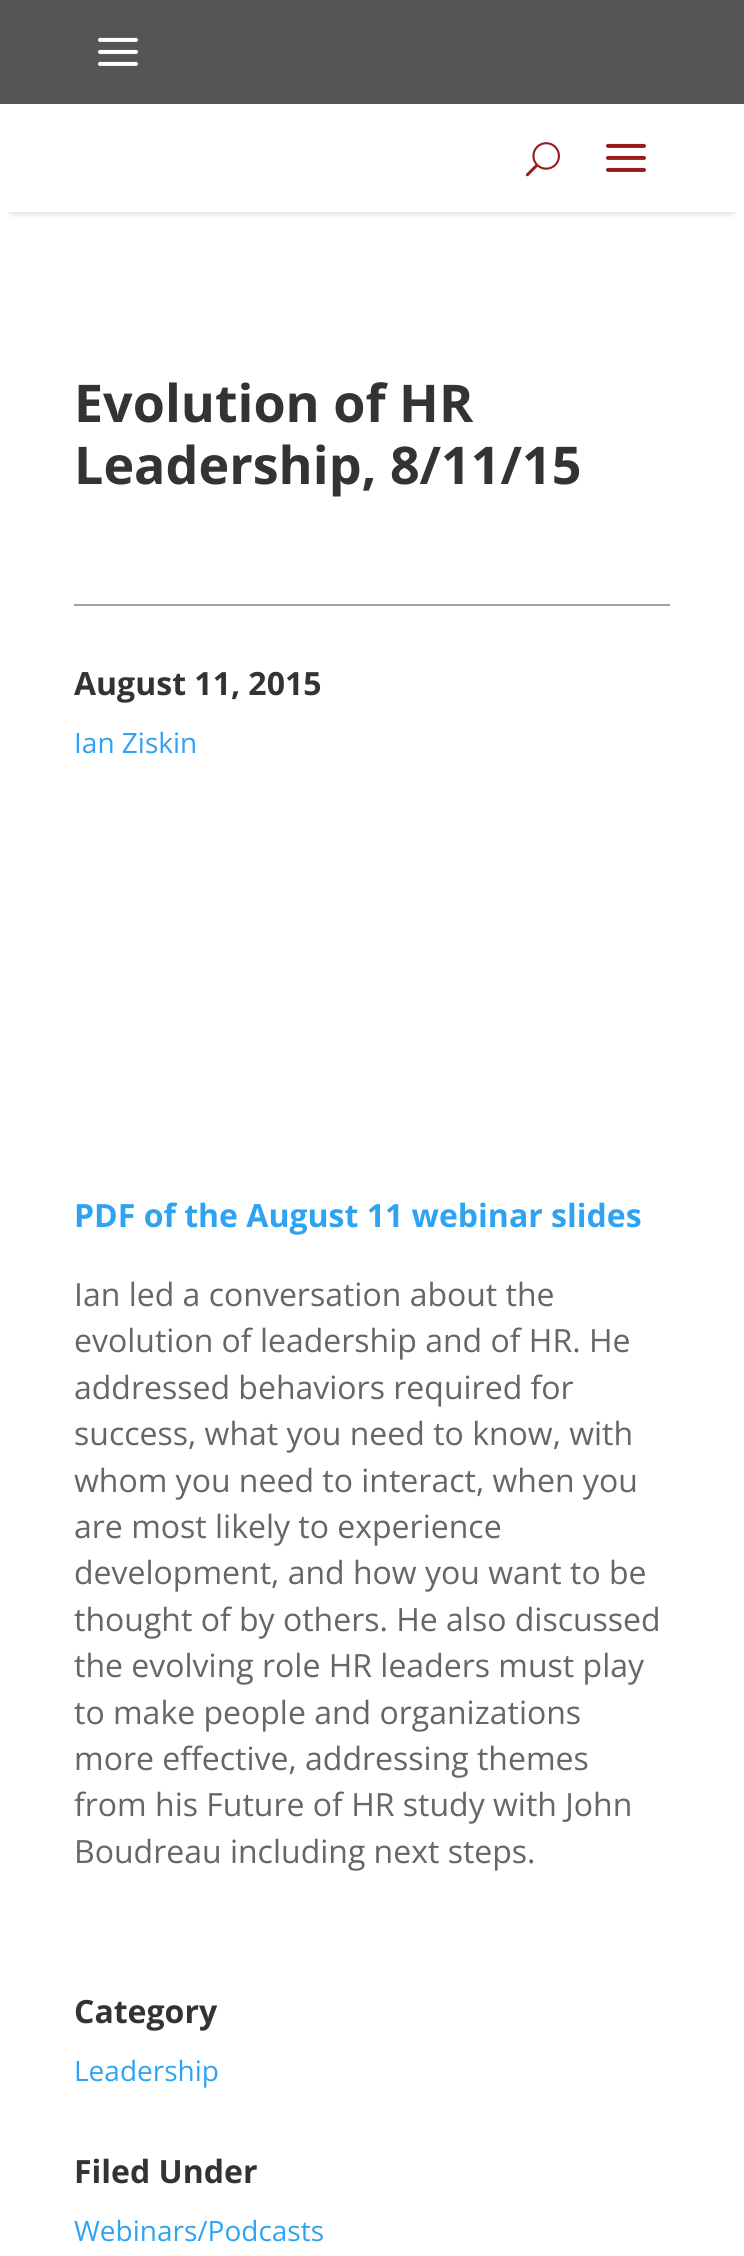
import math
import cairocffi as cairo

surface = cairo.ImageSurface(cairo.FORMAT_RGB24, 744, 2256)
cr = cairo.Context(surface)
options = cairo.FontOptions()
options.set_hint_metrics(cairo.HINT_METRICS_OFF)
options.set_hint_style(cairo.HINT_STYLE_NONE)
cr.set_font_options(options)
cr.set_miter_limit(4)


def use_color(code):
    cr.set_source_rgb(*(v / 255 for v in bytes.fromhex(code[-6:])))


def round_rect(x, y, w, h, r):
    cr.new_sub_path()
    for i, (u, v) in enumerate([(x + w - r, y + h - r), (x + r, y + h - r), (x + r, y + r), (x + w - r, y + r)]):
        cr.arc(u, v, r, i * math.pi / 2, (i + 1) * math.pi / 2)
    cr.close_path()


def shadow(x, y, w, h, r, blur, alpha):
    cr.push_group_with_content(cairo.CONTENT_ALPHA)
    cr.set_operator(cairo.OPERATOR_SOURCE)
    for i in range(15, -16, -2):
        e = blur * i / 6
        if min(w, h) + 2 * e > 0:
            cr.set_source_rgba(0, 0, 0, alpha * math.erfc((i - 1) / 8.5) / 2)
            round_rect(x - e, y - e, w + 2 * e, h + 2 * e, max(0, min(r + e + blur * .6, min(w, h) / 2 + e)))
            cr.fill()
    cr.mask(cr.pop_group())


def picture(path, x, y, w, h):
    cr.save()
    cr.set_source_surface(cairo.ImageSurface.create_from_png(path), x, y)
    cr.rectangle(x, y, w, h)
    cr.fill()
    cr.restore()


use_color("#ffffff")
cr.paint()
use_color("#555555")
cr.rectangle(0, 0, 744, 104)
cr.fill()
picture("img1.png", 98, 37, 40, 29)
cr.save()
cr.rectangle(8, 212, 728, 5)
cr.clip()
use_color("#000000")
shadow(12, 126, 720, 84, 0, 5, 0.3)
cr.restore()
picture("img2.png", 525, 142, 35, 35)
picture("img3.png", 606, 143, 40, 29)
use_color("#a2a2a2")
cr.rectangle(74, 604, 596, 2)
cr.fill()
cr.select_font_face("Open Sans", cairo.FONT_SLANT_NORMAL, cairo.FONT_WEIGHT_BOLD)
cr.set_font_size(52)
use_color("#333333")
cr.move_to(74, 422)
cr.show_text("Evolution of HR")
cr.move_to(74, 484)
cr.show_text("Leadership, 8/11/15")
cr.set_font_size(32)
cr.move_to(74, 695)
cr.show_text("August 11, 2015")
cr.select_font_face("Open Sans")
cr.set_font_size(28)
use_color("#2ea3f2")
cr.move_to(74, 753)
cr.show_text("Ian Ziskin")
cr.select_font_face("Open Sans", cairo.FONT_SLANT_NORMAL, cairo.FONT_WEIGHT_BOLD)
cr.set_font_size(32)
cr.move_to(74, 1227)
cr.show_text("PDF of the August 11 webinar slides")
cr.select_font_face("Open Sans")
use_color("#666666")
cr.move_to(74, 1306)
cr.show_text("Ian led a conversation about the")
cr.move_to(74, 1352)
cr.show_text("evolution of leadership and of HR. He")
cr.move_to(74, 1399)
cr.show_text("addressed behaviors required for")
cr.move_to(74, 1445)
cr.show_text("success, what you need to know, with")
cr.move_to(74, 1492)
cr.show_text("whom you need to interact, when you")
cr.move_to(74, 1538)
cr.show_text("are most likely to experience")
cr.move_to(74, 1584)
cr.show_text("development, and how you want to be")
cr.move_to(74, 1631)
cr.show_text("thought of by others. He also discussed")
cr.move_to(74, 1677)
cr.show_text("the evolving role HR leaders must play")
cr.move_to(74, 1724)
cr.show_text("to make people and organizations")
cr.move_to(74, 1770)
cr.show_text("more effective, addressing themes")
cr.move_to(74, 1816)
cr.show_text("from his Future of HR study with John")
cr.move_to(74, 1863)
cr.show_text("Boudreau including next steps.")
cr.select_font_face("Open Sans", cairo.FONT_SLANT_NORMAL, cairo.FONT_WEIGHT_BOLD)
use_color("#333333")
cr.move_to(74, 2023)
cr.show_text("Category")
cr.select_font_face("Open Sans")
cr.set_font_size(28)
use_color("#2ea3f2")
cr.move_to(74, 2081)
cr.show_text("Leadership")
cr.select_font_face("Open Sans", cairo.FONT_SLANT_NORMAL, cairo.FONT_WEIGHT_BOLD)
cr.set_font_size(32)
use_color("#333333")
cr.move_to(74, 2183)
cr.show_text("Filed Under")
cr.select_font_face("Open Sans")
cr.set_font_size(28)
use_color("#2ea3f2")
cr.move_to(74, 2241)
cr.show_text("Webinars/Podcasts")
surface.write_to_png("result.png")
